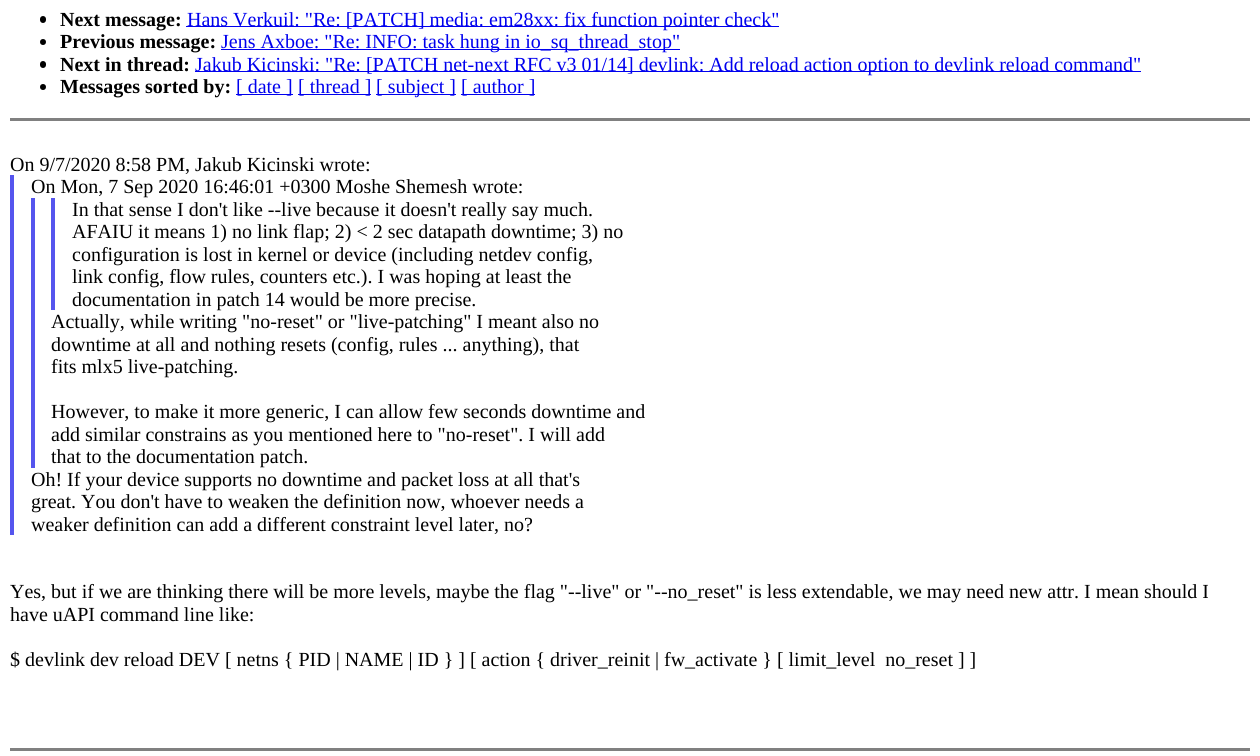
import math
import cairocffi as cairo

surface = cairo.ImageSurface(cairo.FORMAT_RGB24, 1260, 756)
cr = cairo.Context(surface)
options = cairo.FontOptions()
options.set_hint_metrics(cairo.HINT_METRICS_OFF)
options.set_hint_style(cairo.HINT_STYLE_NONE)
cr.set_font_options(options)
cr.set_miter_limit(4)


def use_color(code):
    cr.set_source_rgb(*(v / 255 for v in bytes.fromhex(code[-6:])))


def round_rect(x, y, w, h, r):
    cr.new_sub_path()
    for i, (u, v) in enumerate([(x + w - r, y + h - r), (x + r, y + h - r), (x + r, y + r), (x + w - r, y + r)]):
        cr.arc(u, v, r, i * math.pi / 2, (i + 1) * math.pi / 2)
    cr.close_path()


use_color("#ffffff")
cr.paint()
use_color("#000000")
round_rect(40, 16, 6, 7, 3)
cr.fill()
cr.select_font_face("Liberation Serif", cairo.FONT_SLANT_NORMAL, cairo.FONT_WEIGHT_BOLD)
cr.set_font_size(20)
cr.move_to(60, 26)
cr.show_text("Next message:")
use_color("#0000ee")
cr.rectangle(186, 26, 593, 1)
cr.fill()
cr.select_font_face("Liberation Serif")
cr.move_to(187, 26)
cr.show_text("Hans Verkuil: \"Re: [PATCH] media: em28xx: fix function pointer check\"")
use_color("#000000")
cr.new_path()
cr.arc(43, 42, 3, 0, 2 * math.pi)
cr.fill()
cr.select_font_face("Liberation Serif", cairo.FONT_SLANT_NORMAL, cairo.FONT_WEIGHT_BOLD)
cr.move_to(60, 48)
cr.show_text("Previous message:")
use_color("#0000ee")
cr.rectangle(221, 49, 459, 1)
cr.fill()
cr.select_font_face("Liberation Serif")
cr.move_to(221, 48)
cr.show_text("Jens Axboe: \"Re: INFO: task hung in io_sq_thread_stop\"")
use_color("#000000")
round_rect(40, 61, 6, 7, 3)
cr.fill()
cr.select_font_face("Liberation Serif", cairo.FONT_SLANT_NORMAL, cairo.FONT_WEIGHT_BOLD)
cr.move_to(60, 71)
cr.show_text("Next in thread:")
use_color("#0000ee")
cr.rectangle(195, 71, 946, 1)
cr.fill()
cr.select_font_face("Liberation Serif")
cr.move_to(195, 71)
cr.show_text("Jakub Kicinski: \"Re: [PATCH net-next RFC v3 01/14] devlink: Add reload action option to devlink reload command\"")
use_color("#000000")
cr.new_path()
cr.arc(43, 87, 3, 0, 2 * math.pi)
cr.fill()
cr.select_font_face("Liberation Serif", cairo.FONT_SLANT_NORMAL, cairo.FONT_WEIGHT_BOLD)
cr.move_to(60, 93)
cr.show_text("Messages sorted by:")
use_color("#0000ee")
cr.rectangle(236, 94, 57, 1)
cr.fill()
cr.select_font_face("Liberation Serif")
cr.move_to(236, 93)
cr.show_text("[ date ]")
cr.rectangle(298, 94, 73, 1)
cr.fill()
cr.move_to(298, 93)
cr.show_text("[ thread ]")
cr.rectangle(376, 94, 80, 1)
cr.fill()
cr.move_to(376, 93)
cr.show_text("[ subject ]")
cr.rectangle(461, 94, 74, 1)
cr.fill()
cr.move_to(461, 93)
cr.show_text("[ author ]")
use_color("#808080")
cr.rectangle(10, 118, 1240, 3)
cr.fill()
use_color("#000000")
cr.move_to(10, 171)
cr.show_text("On 9/7/2020 8:58 PM, Jakub Kicinski wrote:")
use_color("#5555ee")
cr.rectangle(10, 175, 4, 360)
cr.fill()
use_color("#000000")
cr.move_to(31, 193)
cr.show_text("On Mon, 7 Sep 2020 16:46:01 +0300 Moshe Shemesh wrote:")
use_color("#5555ee")
cr.rectangle(31, 198, 4, 270)
cr.fill()
cr.rectangle(51, 198, 4, 112)
cr.fill()
use_color("#000000")
cr.move_to(72, 216)
cr.show_text("In that sense I don't like --live because it doesn't really say much.")
cr.move_to(72, 238)
cr.show_text("AFAIU it means 1) no link flap; 2) < 2 sec datapath downtime; 3) no")
cr.move_to(72, 261)
cr.show_text("configuration is lost in kernel or device (including netdev config,")
cr.move_to(72, 283)
cr.show_text("link config, flow rules, counters etc.). I was hoping at least the")
cr.move_to(72, 306)
cr.show_text("documentation in patch 14 would be more precise.")
cr.move_to(51, 328)
cr.show_text("Actually, while writing \"no-reset\" or \"live-patching\" I meant also no")
cr.move_to(51, 351)
cr.show_text("downtime at all and nothing resets (config, rules ... anything), that")
cr.move_to(51, 373)
cr.show_text("fits mlx5 live-patching.")
cr.move_to(51, 418)
cr.show_text("However, to make it more generic, I can allow few seconds downtime and")
cr.move_to(51, 441)
cr.show_text("add similar constrains as you mentioned here to \"no-reset\". I will add")
cr.move_to(51, 463)
cr.show_text("that to the documentation patch.")
cr.move_to(31, 486)
cr.show_text("Oh! If your device supports no downtime and packet loss at all that's")
cr.move_to(31, 508)
cr.show_text("great. You don't have to weaken the definition now, whoever needs a")
cr.move_to(31, 531)
cr.show_text("weaker definition can add a different constraint level later, no?")
cr.move_to(10, 598)
cr.show_text("Yes, but if we are thinking there will be more levels, maybe the flag \"--live\" or \"--no_reset\" is less extendable, we may need new attr. I mean should I")
cr.move_to(10, 621)
cr.show_text("have uAPI command line like:")
cr.move_to(10, 666)
cr.show_text("$ devlink dev reload DEV [ netns { PID | NAME | ID } ] [ action { driver_reinit | fw_activate } [ limit_level  no_reset ] ]")
use_color("#808080")
cr.rectangle(10, 748, 1240, 3)
cr.fill()
surface.write_to_png("result.png")
